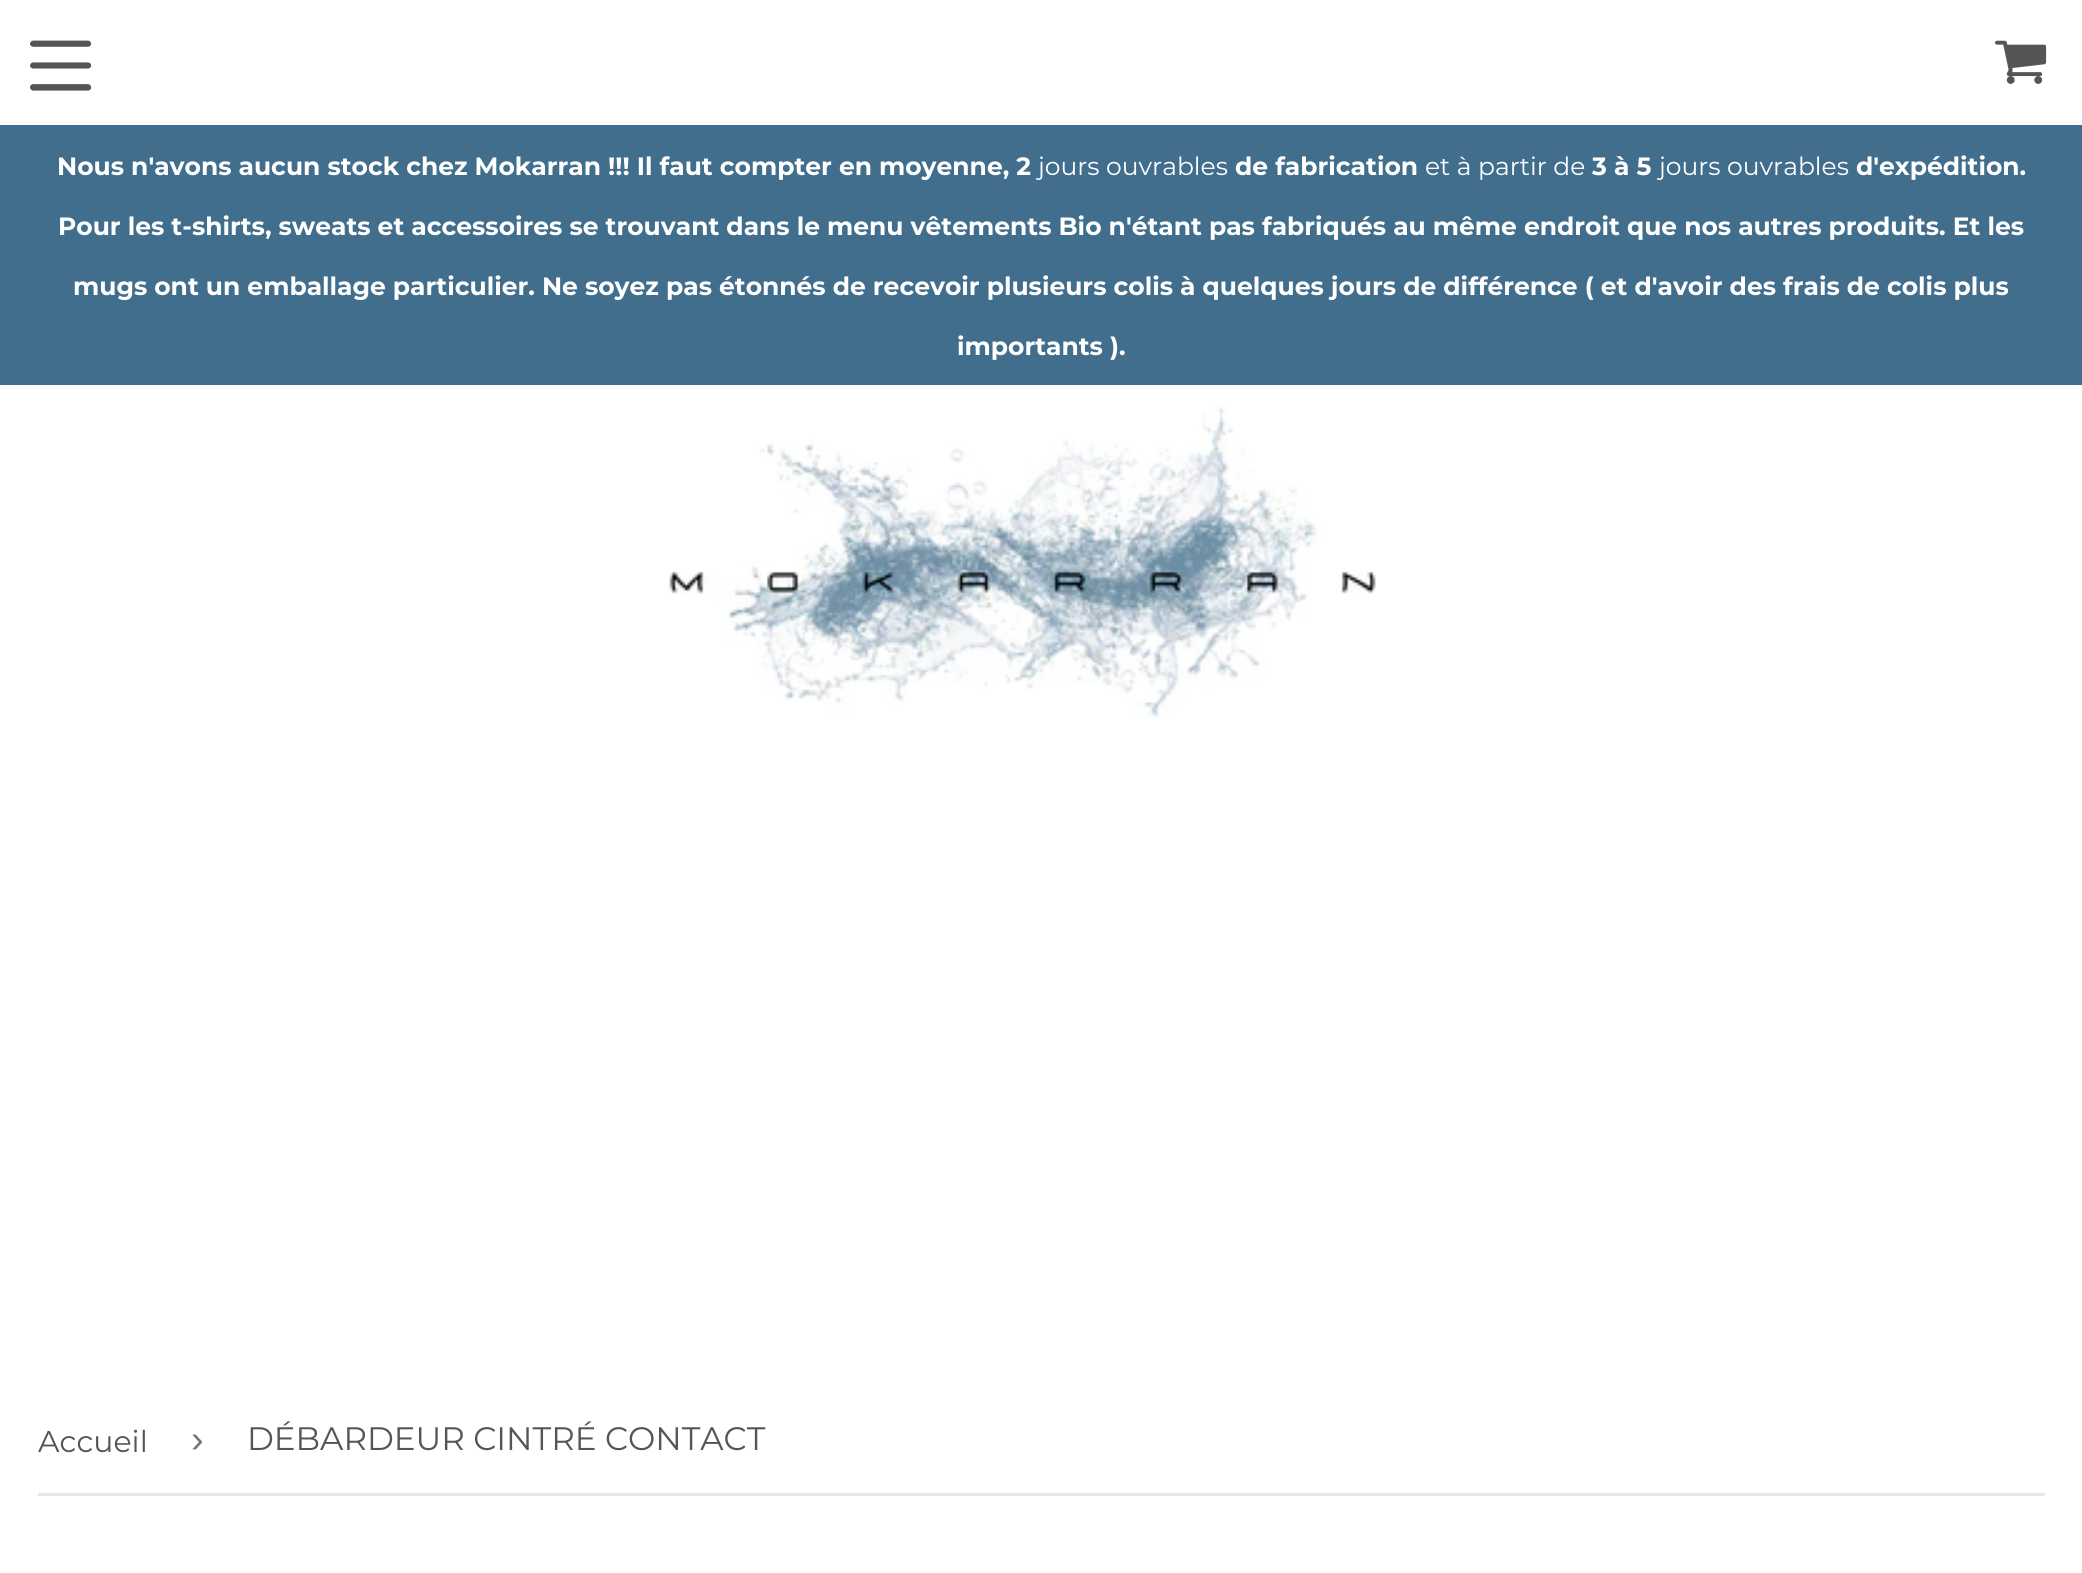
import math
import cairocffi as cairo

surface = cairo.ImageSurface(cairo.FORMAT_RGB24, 2082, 1573)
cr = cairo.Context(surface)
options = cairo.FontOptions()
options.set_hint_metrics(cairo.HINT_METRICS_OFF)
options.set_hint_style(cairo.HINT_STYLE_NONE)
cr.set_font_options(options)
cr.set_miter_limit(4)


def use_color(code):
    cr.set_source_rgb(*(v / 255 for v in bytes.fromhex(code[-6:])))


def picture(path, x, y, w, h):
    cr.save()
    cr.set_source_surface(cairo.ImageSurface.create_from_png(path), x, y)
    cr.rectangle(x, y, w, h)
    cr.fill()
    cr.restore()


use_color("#ffffff")
cr.paint()
picture("img1.png", 30, 40, 62, 51)
picture("img2.png", 1995, 40, 52, 44)
picture("img3.png", 668, 407, 708, 313)
use_color("#416e8c")
cr.rectangle(0, 125, 2082, 260)
cr.fill()
cr.select_font_face("Montserrat", cairo.FONT_SLANT_NORMAL, cairo.FONT_WEIGHT_BOLD)
cr.set_font_size(25)
use_color("#ffffff")
cr.move_to(57, 175)
cr.show_text("Nous n'avons aucun stock chez Mokarran !!! Il faut compter en moyenne, 2")
cr.select_font_face("Montserrat")
cr.move_to(1038, 175)
cr.show_text("jours ouvrables")
cr.select_font_face("Montserrat", cairo.FONT_SLANT_NORMAL, cairo.FONT_WEIGHT_BOLD)
cr.move_to(1235, 175)
cr.show_text("de fabrication")
cr.select_font_face("Montserrat")
cr.move_to(1425, 175)
cr.show_text("et à partir de")
cr.select_font_face("Montserrat", cairo.FONT_SLANT_NORMAL, cairo.FONT_WEIGHT_BOLD)
cr.move_to(1592, 175)
cr.show_text("3 à 5")
cr.select_font_face("Montserrat")
cr.move_to(1659, 175)
cr.show_text("jours ouvrables")
cr.select_font_face("Montserrat", cairo.FONT_SLANT_NORMAL, cairo.FONT_WEIGHT_BOLD)
cr.move_to(1856, 175)
cr.show_text("d'expédition.")
cr.move_to(58, 235)
cr.show_text("Pour les t-shirts, sweats et accessoires se trouvant dans le menu vêtements Bio n'étant pas fabriqués au même endroit que nos autres produits. Et les")
cr.move_to(73, 295)
cr.show_text("mugs ont un emballage particulier. Ne soyez pas étonnés de recevoir plusieurs colis à quelques jours de différence ( et d'avoir des frais de colis plus")
cr.move_to(957, 355)
cr.show_text("importants ).")
use_color("#e6e6e6")
cr.rectangle(38, 1493, 2007, 3)
cr.fill()
cr.select_font_face("Montserrat")
cr.set_font_size(30)
use_color("#555555")
cr.move_to(38, 1452)
cr.show_text("Accueil")
cr.select_font_face("Liberation Sans")
cr.set_font_size(38)
use_color("#767676")
cr.move_to(191, 1452)
cr.show_text("›")
cr.select_font_face("Montserrat")
cr.set_font_size(32.5)
use_color("#555555")
cr.move_to(247, 1450)
cr.show_text("DÉBARDEUR CINTRÉ CONTACT")
surface.write_to_png("result.png")
